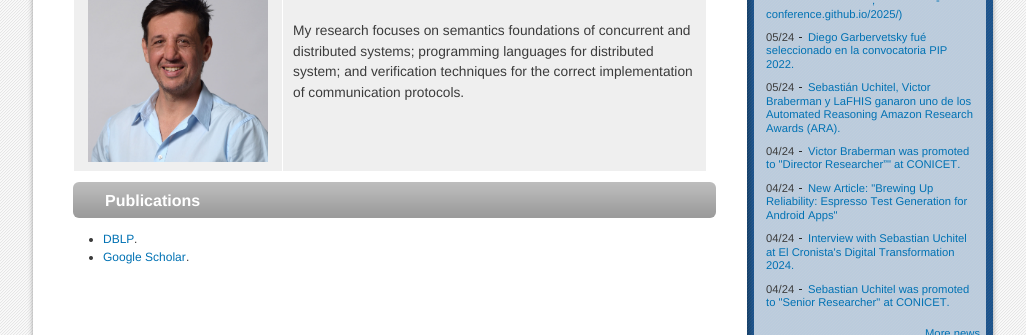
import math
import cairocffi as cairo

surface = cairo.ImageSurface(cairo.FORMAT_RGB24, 1026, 335)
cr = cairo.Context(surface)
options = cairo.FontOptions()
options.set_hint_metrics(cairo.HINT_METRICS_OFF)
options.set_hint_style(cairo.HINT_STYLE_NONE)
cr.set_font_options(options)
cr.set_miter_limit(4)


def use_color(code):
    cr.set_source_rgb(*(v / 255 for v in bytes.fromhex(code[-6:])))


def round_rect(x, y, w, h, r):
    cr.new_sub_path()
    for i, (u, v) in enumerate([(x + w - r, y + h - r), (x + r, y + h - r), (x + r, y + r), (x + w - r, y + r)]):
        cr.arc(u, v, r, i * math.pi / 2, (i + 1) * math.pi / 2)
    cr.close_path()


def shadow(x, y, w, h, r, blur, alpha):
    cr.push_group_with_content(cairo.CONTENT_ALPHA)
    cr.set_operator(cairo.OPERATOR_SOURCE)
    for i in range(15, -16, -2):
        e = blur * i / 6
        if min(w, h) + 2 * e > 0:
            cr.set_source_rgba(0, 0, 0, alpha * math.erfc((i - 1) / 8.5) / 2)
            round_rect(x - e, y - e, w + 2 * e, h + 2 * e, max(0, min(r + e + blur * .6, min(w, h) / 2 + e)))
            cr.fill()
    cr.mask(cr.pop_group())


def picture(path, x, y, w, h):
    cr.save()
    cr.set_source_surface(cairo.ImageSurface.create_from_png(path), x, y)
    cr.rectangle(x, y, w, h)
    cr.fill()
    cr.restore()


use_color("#ffffff")
cr.paint()
picture("img1.png", 0, 0, 1026, 335)
use_color("#999999")
shadow(33, -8, 960, 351, 0, 2.5, 1)
use_color("#ffffff")
cr.rectangle(33, 0, 714, 335)
cr.fill()
use_color("#efefef")
cr.rectangle(74, 0, 632, 171)
cr.fill()
picture("img2.png", 88, 0, 180, 162)
use_color("#ffffff")
cr.rectangle(282, 0, 1, 172)
cr.fill()
cr.select_font_face("Liberation Sans")
cr.set_font_size(13.75)
use_color("#3b3b3b")
cr.move_to(293, 35)
cr.show_text("My research focuses on semantics foundations of concurrent and")
cr.move_to(293, 56)
cr.show_text("distributed systems; programming languages for distributed")
cr.move_to(293, 76)
cr.show_text("system; and verification techniques for the correct implementation")
cr.move_to(293, 97)
cr.show_text("of communication protocols.")
picture("img3.png", 73, 182, 643, 36)
cr.select_font_face("Liberation Sans", cairo.FONT_SLANT_NORMAL, cairo.FONT_WEIGHT_BOLD)
cr.set_font_size(16)
use_color("#ffffff")
cr.move_to(105, 206)
cr.show_text("Publications")
use_color("#3b3b3b")
cr.new_path()
cr.arc(91, 240, 2, 0, 2 * math.pi)
cr.fill()
cr.select_font_face("Liberation Sans")
cr.set_font_size(12)
use_color("#0071b3")
cr.move_to(103, 243)
cr.show_text("DBLP")
use_color("#3b3b3b")
cr.move_to(134, 243)
cr.show_text(".")
cr.new_path()
cr.arc(91, 258, 2, 0, 2 * math.pi)
cr.fill()
use_color("#0071b3")
cr.move_to(103, 261)
cr.show_text("Google Scholar")
use_color("#3b3b3b")
cr.move_to(186, 261)
cr.show_text(".")
picture("img4.png", 747, 0, 246, 335)
cr.set_font_size(11.25)
use_color("#0071b3")
cr.move_to(936, 4)
cr.show_text("-")
cr.move_to(872, 4)
cr.show_text(",")
cr.move_to(766, 18)
cr.show_text("conference.github.io/2025/)")
use_color("#282828")
cr.rectangle(799, 37, 3, 1)
cr.fill()
use_color("#3b3b3b")
cr.move_to(766, 41)
cr.show_text("05/24")
use_color("#0071b3")
cr.move_to(808, 41)
cr.show_text("Diego Garbervetsky fué")
cr.move_to(766, 54)
cr.show_text("seleccionado en la convocatoria PIP")
cr.move_to(766, 68)
cr.show_text("2022.")
use_color("#282828")
cr.rectangle(799, 87, 3, 1)
cr.fill()
use_color("#3b3b3b")
cr.move_to(766, 91)
cr.show_text("05/24")
use_color("#0071b3")
cr.move_to(808, 91)
cr.show_text("Sebastián Uchitel, Victor")
cr.move_to(766, 105)
cr.show_text("Braberman y LaFHIS ganaron uno de los")
cr.move_to(766, 118)
cr.show_text("Automated Reasoning Amazon Research")
cr.move_to(766, 132)
cr.show_text("Awards (ARA).")
use_color("#282828")
cr.rectangle(799, 151, 3, 1)
cr.fill()
use_color("#3b3b3b")
cr.move_to(766, 155)
cr.show_text("04/24")
use_color("#0071b3")
cr.move_to(808, 155)
cr.show_text("Victor Braberman was promoted")
cr.move_to(766, 168)
cr.show_text("to \"Director Researcher”\" at CONICET.")
use_color("#282828")
cr.rectangle(799, 188, 3, 1)
cr.fill()
use_color("#3b3b3b")
cr.move_to(766, 192)
cr.show_text("04/24")
use_color("#0071b3")
cr.move_to(808, 192)
cr.show_text("New Article: \"Brewing Up")
cr.move_to(766, 205)
cr.show_text("Reliability: Espresso Test Generation for")
cr.move_to(766, 219)
cr.show_text("Android Apps\"")
use_color("#282828")
cr.rectangle(799, 238, 3, 1)
cr.fill()
use_color("#3b3b3b")
cr.move_to(766, 242)
cr.show_text("04/24")
use_color("#0071b3")
cr.move_to(808, 242)
cr.show_text("Interview with Sebastian Uchitel")
cr.move_to(766, 256)
cr.show_text("at El Cronista's Digital Transformation")
cr.move_to(766, 269)
cr.show_text("2024.")
use_color("#282828")
cr.rectangle(799, 289, 3, 1)
cr.fill()
use_color("#3b3b3b")
cr.move_to(766, 293)
cr.show_text("04/24")
use_color("#0071b3")
cr.move_to(808, 293)
cr.show_text("Sebastian Uchitel was promoted")
cr.move_to(766, 306)
cr.show_text("to \"Senior Researcher\" at CONICET.")
cr.move_to(925, 337)
cr.show_text("More news")
surface.write_to_png("result.png")
